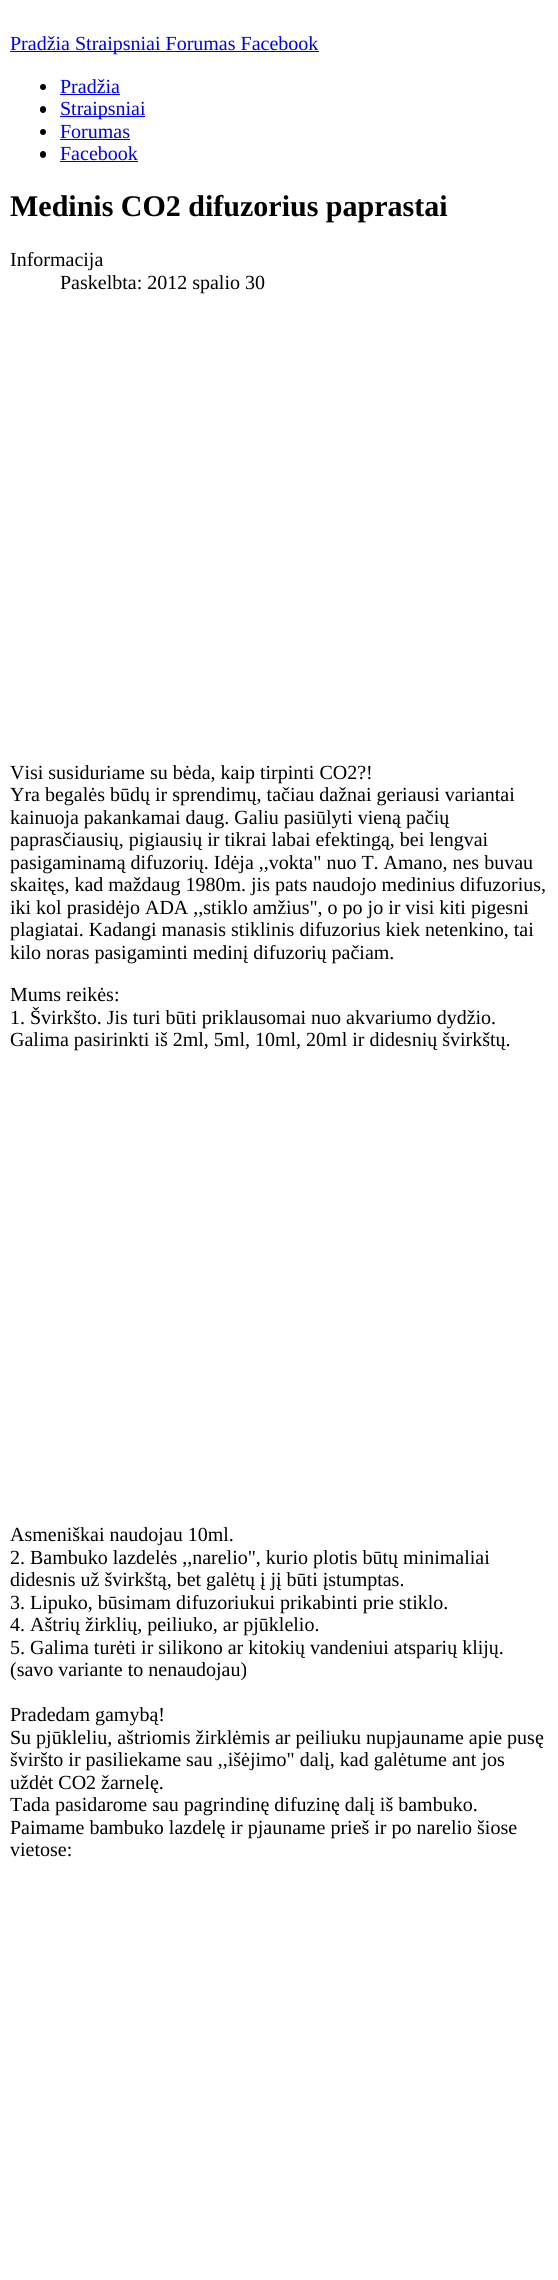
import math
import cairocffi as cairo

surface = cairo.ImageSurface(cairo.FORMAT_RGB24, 558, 2280)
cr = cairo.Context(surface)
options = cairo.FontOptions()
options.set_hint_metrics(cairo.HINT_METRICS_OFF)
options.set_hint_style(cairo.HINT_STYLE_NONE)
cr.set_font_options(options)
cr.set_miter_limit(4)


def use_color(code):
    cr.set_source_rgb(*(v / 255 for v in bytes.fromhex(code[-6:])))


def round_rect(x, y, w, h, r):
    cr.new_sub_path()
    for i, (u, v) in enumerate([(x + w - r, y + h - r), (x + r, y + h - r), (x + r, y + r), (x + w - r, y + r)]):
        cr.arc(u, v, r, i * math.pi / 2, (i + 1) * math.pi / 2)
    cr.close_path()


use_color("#ffffff")
cr.paint()
use_color("#0000ee")
cr.rectangle(10, 51, 150, 1)
cr.fill()
cr.select_font_face("Liberation Serif")
cr.set_font_size(20)
cr.move_to(10, 50)
cr.show_text("Pradžia Straipsniai Forumas Facebook")
cr.rectangle(160, 51, 159, 1)
cr.fill()
use_color("#000000")
cr.arc(43, 87, 3, 0, 2 * math.pi)
cr.fill()
use_color("#0000ee")
cr.move_to(60, 93)
cr.show_text("Pradžia")
cr.rectangle(60, 94, 60, 1)
cr.fill()
use_color("#000000")
round_rect(40, 106, 6, 7, 3)
cr.fill()
use_color("#0000ee")
cr.rectangle(60, 116, 85, 1)
cr.fill()
cr.move_to(60, 115)
cr.show_text("Straipsniai")
use_color("#000000")
cr.new_path()
cr.arc(43, 132, 3, 0, 2 * math.pi)
cr.fill()
use_color("#0000ee")
cr.move_to(60, 138)
cr.show_text("Forumas")
cr.rectangle(60, 139, 70, 1)
cr.fill()
use_color("#000000")
round_rect(40, 151, 6, 7, 3)
cr.fill()
use_color("#0000ee")
cr.move_to(60, 160)
cr.show_text("Facebook")
cr.rectangle(60, 161, 78, 1)
cr.fill()
cr.select_font_face("Liberation Serif", cairo.FONT_SLANT_NORMAL, cairo.FONT_WEIGHT_BOLD)
cr.set_font_size(30)
use_color("#000000")
cr.move_to(10, 216)
cr.show_text("Medinis CO2 difuzorius paprastai")
cr.select_font_face("Liberation Serif")
cr.set_font_size(20)
cr.move_to(10, 266)
cr.show_text("Informacija")
cr.move_to(60, 289)
cr.show_text("Paskelbta: 2012 spalio 30")
cr.move_to(10, 779)
cr.show_text("Visi susiduriame su bėda, kaip tirpinti CO2?!")
cr.move_to(10, 801)
cr.show_text("Yra begalės būdų ir sprendimų, tačiau dažnai geriausi variantai")
cr.move_to(10, 824)
cr.show_text("kainuoja pakankamai daug. Galiu pasiūlyti vieną pačių")
cr.move_to(10, 846)
cr.show_text("paprasčiausių, pigiausių ir tikrai labai efektingą, bei lengvai")
cr.move_to(10, 869)
cr.show_text("pasigaminamą difuzorių. Idėja ,,vokta\" nuo T. Amano, nes buvau")
cr.move_to(10, 891)
cr.show_text("skaitęs, kad maždaug 1980m. jis pats naudojo medinius difuzorius,")
cr.move_to(10, 914)
cr.show_text("iki kol prasidėjo ADA ,,stiklo amžius\", o po jo ir visi kiti pigesni")
cr.move_to(10, 936)
cr.show_text("plagiatai. Kadangi manasis stiklinis difuzorius kiek netenkino, tai")
cr.move_to(10, 959)
cr.show_text("kilo noras pasigaminti medinį difuzorių pačiam.")
cr.move_to(10, 1001)
cr.show_text("Mums reikės:")
cr.move_to(10, 1024)
cr.show_text("1. Švirkšto. Jis turi būti priklausomai nuo akvariumo dydžio.")
cr.move_to(10, 1046)
cr.show_text("Galima pasirinkti iš 2ml, 5ml, 10ml, 20ml ir didesnių švirkštų.")
cr.move_to(10, 1541)
cr.show_text("Asmeniškai naudojau 10ml.")
cr.move_to(10, 1564)
cr.show_text("2. Bambuko lazdelės ,,narelio\", kurio plotis būtų minimaliai")
cr.move_to(10, 1586)
cr.show_text("didesnis už švirkštą, bet galėtų į jį būti įstumptas.")
cr.move_to(10, 1609)
cr.show_text("3. Lipuko, būsimam difuzoriukui prikabinti prie stiklo.")
cr.move_to(10, 1631)
cr.show_text("4. Aštrių žirklių, peiliuko, ar pjūklelio.")
cr.move_to(10, 1654)
cr.show_text("5. Galima turėti ir silikono ar kitokių vandeniui atsparių klijų.")
cr.move_to(10, 1676)
cr.show_text("(savo variante to nenaudojau)")
cr.move_to(10, 1721)
cr.show_text("Pradedam gamybą!")
cr.move_to(10, 1744)
cr.show_text("Su pjūkleliu, aštriomis žirklėmis ar peiliuku nupjauname apie pusę")
cr.move_to(10, 1766)
cr.show_text("šviršto ir pasiliekame sau ,,išėjimo\" dalį, kad galėtume ant jos")
cr.move_to(10, 1789)
cr.show_text("uždėt CO2 žarnelę.")
cr.move_to(10, 1811)
cr.show_text("Tada pasidarome sau pagrindinę difuzinę dalį iš bambuko.")
cr.move_to(10, 1834)
cr.show_text("Paimame bambuko lazdelę ir pjauname prieš ir po narelio šiose")
cr.move_to(10, 1856)
cr.show_text("vietose:")
surface.write_to_png("result.png")
